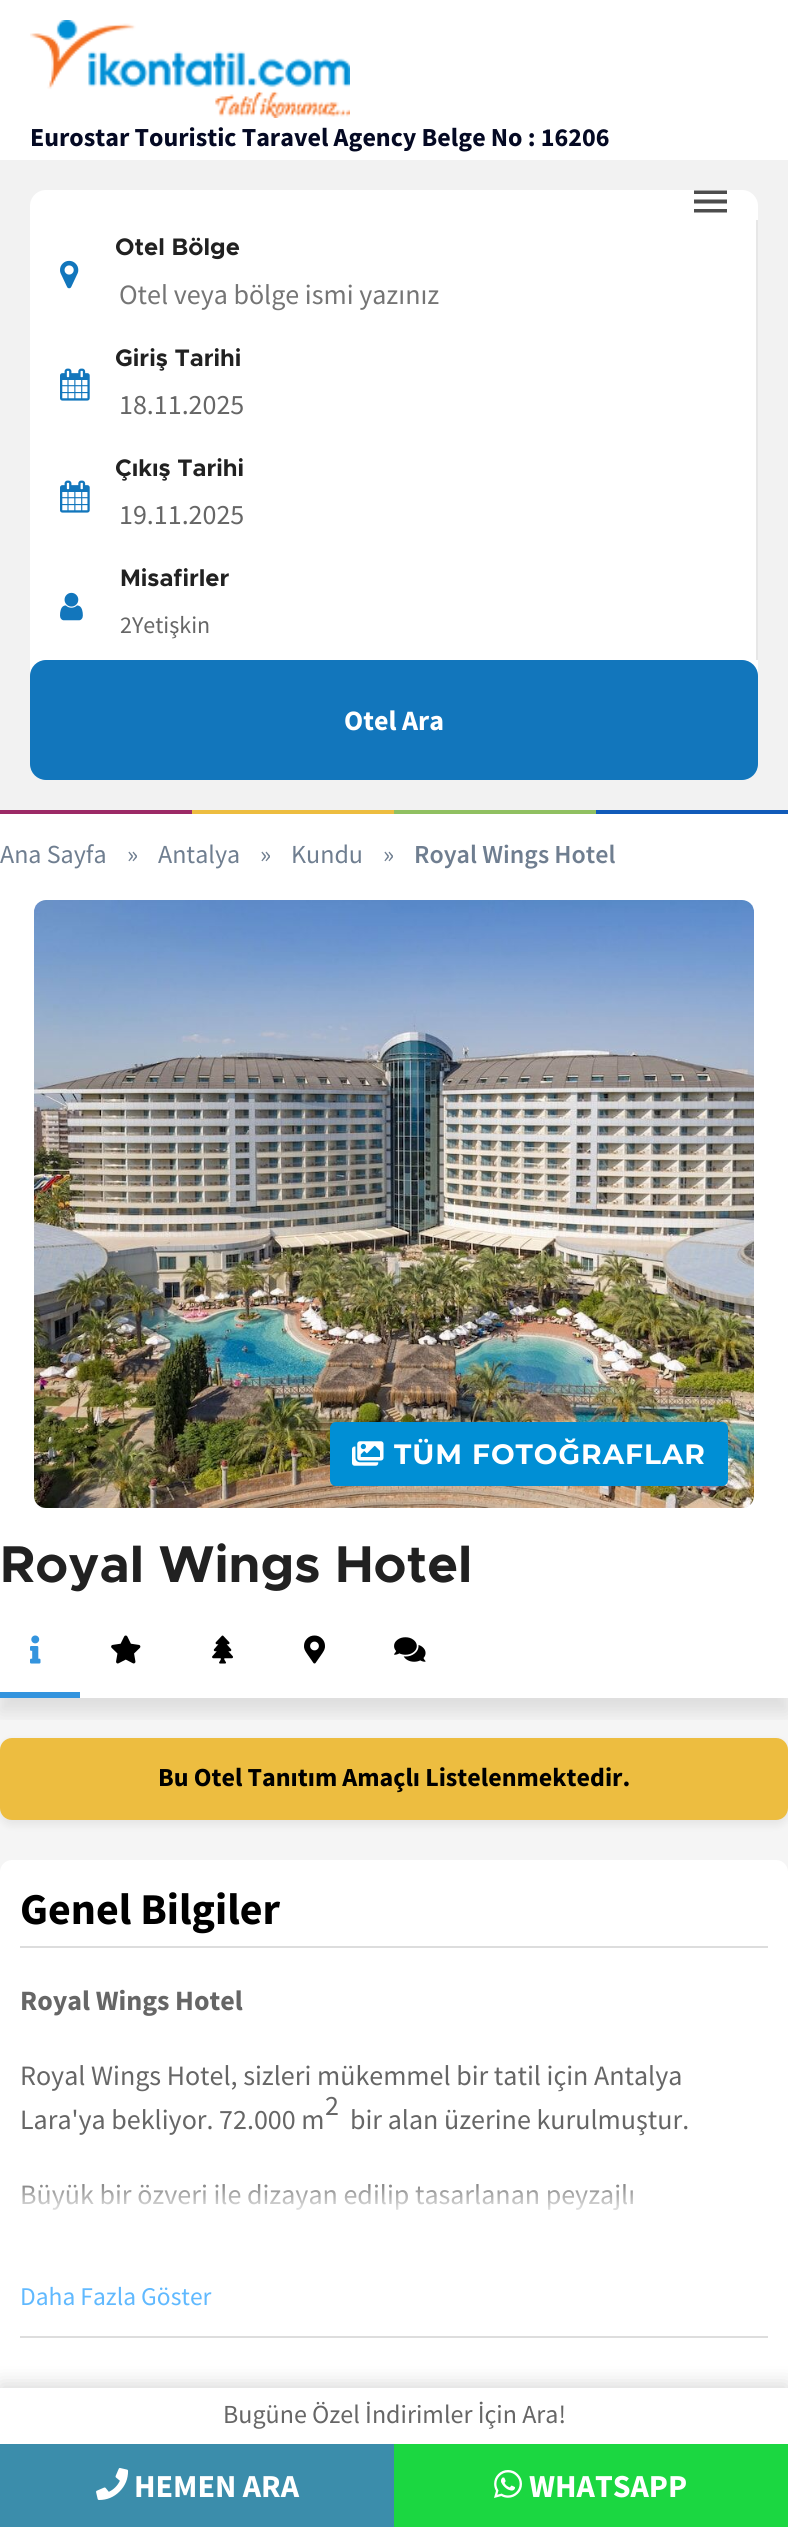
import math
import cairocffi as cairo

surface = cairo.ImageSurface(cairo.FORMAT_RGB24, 788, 2527)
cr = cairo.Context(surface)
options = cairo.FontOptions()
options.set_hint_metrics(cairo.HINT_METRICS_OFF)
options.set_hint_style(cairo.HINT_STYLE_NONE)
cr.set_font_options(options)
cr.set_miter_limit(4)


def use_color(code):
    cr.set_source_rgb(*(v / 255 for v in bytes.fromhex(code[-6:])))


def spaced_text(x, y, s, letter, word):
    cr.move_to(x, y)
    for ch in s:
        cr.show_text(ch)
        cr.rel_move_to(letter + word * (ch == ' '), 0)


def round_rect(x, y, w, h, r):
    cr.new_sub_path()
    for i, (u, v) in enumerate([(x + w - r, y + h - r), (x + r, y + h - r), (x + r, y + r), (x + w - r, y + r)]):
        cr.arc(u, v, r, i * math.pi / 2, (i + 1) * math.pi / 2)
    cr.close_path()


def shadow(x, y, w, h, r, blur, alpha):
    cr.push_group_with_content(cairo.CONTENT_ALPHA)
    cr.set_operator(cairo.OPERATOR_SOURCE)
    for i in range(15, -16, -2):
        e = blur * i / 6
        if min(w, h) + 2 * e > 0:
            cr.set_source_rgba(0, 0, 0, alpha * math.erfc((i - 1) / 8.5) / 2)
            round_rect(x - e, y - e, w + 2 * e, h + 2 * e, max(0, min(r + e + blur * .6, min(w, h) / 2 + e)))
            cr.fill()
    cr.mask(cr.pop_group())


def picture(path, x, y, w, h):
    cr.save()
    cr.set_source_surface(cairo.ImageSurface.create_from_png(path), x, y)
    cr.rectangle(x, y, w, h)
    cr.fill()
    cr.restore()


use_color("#ffffff")
cr.paint()
picture("img1.png", 30, 20, 320, 98)
cr.select_font_face("Source Sans Pro", cairo.FONT_SLANT_NORMAL, cairo.FONT_WEIGHT_BOLD)
cr.set_font_size(26)
use_color("#040923")
cr.move_to(30, 146)
cr.show_text("Eurostar Touristic Taravel Agency Belge No : 16206")
use_color("#f2f2f2")
cr.rectangle(0, 160, 788, 650)
cr.fill()
use_color("#ffffff")
round_rect(30, 190, 728, 590, 16)
cr.fill()
use_color("#4d4d4d")
cr.new_path()
cr.move_to(694, 212.5)
cr.line_to(694, 209)
cr.line_to(727, 209)
cr.line_to(727, 212.5)
cr.close_path()
cr.move_to(694, 203.5)
cr.line_to(694, 199.5)
cr.line_to(727, 199.5)
cr.line_to(727, 203.5)
cr.close_path()
cr.move_to(694, 190.5)
cr.line_to(727, 190.5)
cr.line_to(727, 194)
cr.line_to(694, 194)
cr.close_path()
cr.fill()
picture("img2.png", 0, 810, 788, 4)
use_color("#e7e7e7")
cr.rectangle(756, 220, 2, 440)
cr.fill()
picture("img3.png", 60, 260, 19, 29)
cr.select_font_face("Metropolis", cairo.FONT_SLANT_NORMAL, cairo.FONT_WEIGHT_BOLD)
cr.set_font_size(24)
use_color("#212121")
cr.move_to(115, 255)
cr.show_text("Otel Bölge")
cr.select_font_face("Source Sans Pro")
cr.set_font_size(28)
use_color("#757575")
cr.move_to(119, 304)
cr.show_text("Otel veya bölge ismi yazınız")
picture("img4.png", 60, 368, 30, 33)
cr.select_font_face("Metropolis", cairo.FONT_SLANT_NORMAL, cairo.FONT_WEIGHT_BOLD)
cr.set_font_size(24)
use_color("#212121")
cr.move_to(115, 366)
cr.show_text("Giriş Tarihi")
cr.select_font_face("Source Sans Pro")
cr.set_font_size(28)
use_color("#666666")
cr.move_to(119, 414)
cr.show_text("18.11.2025")
picture("img4.png", 60, 480, 30, 33)
cr.select_font_face("Metropolis", cairo.FONT_SLANT_NORMAL, cairo.FONT_WEIGHT_BOLD)
cr.set_font_size(24)
use_color("#212121")
cr.move_to(115, 476)
cr.show_text("Çıkış Tarihi")
cr.select_font_face("Source Sans Pro")
cr.set_font_size(28)
use_color("#666666")
cr.move_to(119, 524)
cr.show_text("19.11.2025")
picture("img5.png", 60, 592, 23, 29)
cr.select_font_face("Metropolis", cairo.FONT_SLANT_NORMAL, cairo.FONT_WEIGHT_BOLD)
cr.set_font_size(24)
use_color("#212121")
cr.move_to(120, 586)
cr.show_text("Misafirler")
cr.select_font_face("Source Sans Pro")
use_color("#666666")
cr.move_to(120, 633)
cr.show_text("2Yetişkin")
use_color("#1276bc")
round_rect(31, 661, 726, 118, 15)
cr.fill_preserve()
cr.stroke()
cr.select_font_face("Source Sans Pro", cairo.FONT_SLANT_NORMAL, cairo.FONT_WEIGHT_BOLD)
cr.set_font_size(28)
use_color("#ffffff")
cr.move_to(344, 730)
cr.show_text("Otel Ara")
cr.select_font_face("Source Sans Pro")
cr.set_font_size(26)
use_color("#6f7e90")
cr.move_to(0, 863)
cr.show_text("Ana Sayfa")
cr.move_to(127, 863)
cr.show_text("»")
cr.move_to(158, 863)
cr.show_text("Antalya")
cr.move_to(260, 863)
cr.show_text("»")
cr.move_to(291, 863)
cr.show_text("Kundu")
cr.move_to(383, 863)
cr.show_text("»")
cr.select_font_face("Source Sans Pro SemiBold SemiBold")
cr.move_to(414, 863)
cr.show_text("Royal Wings Hotel")
picture("img6.png", 34, 900, 720, 608)
use_color("#008fd5")
round_rect(330, 1422, 398, 64, 6)
cr.fill()
picture("img7.png", 352, 1441, 32, 25)
cr.select_font_face("Montserrat", cairo.FONT_SLANT_NORMAL, cairo.FONT_WEIGHT_BOLD)
cr.set_font_size(28)
use_color("#ffffff")
spaced_text(394, 1464, "TÜM FOTOĞRAFLAR", 1, 0)
cr.select_font_face("Metropolis", cairo.FONT_SLANT_NORMAL, cairo.FONT_WEIGHT_BOLD)
cr.set_font_size(52)
use_color("#212121")
cr.move_to(0, 1582)
cr.show_text("Royal Wings Hotel")
use_color("#f5f5f5")
cr.rectangle(0, 1698, 788, 690)
cr.fill()
use_color("#000000")
shadow(0, 1742, 788, 82, 12, 5, 0.08)
use_color("#edbd40")
round_rect(0, 1738, 788, 82, 12)
cr.fill()
cr.save()
cr.rectangle(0, 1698, 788, 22)
cr.clip()
use_color("#000000")
shadow(0, 1626, 788, 86, 0, 9, 0.1)
cr.restore()
use_color("#3394de")
cr.rectangle(0, 1692, 80, 6)
cr.fill()
picture("img8.png", 30, 1635, 11, 29)
picture("img9.png", 111, 1635, 30, 29)
picture("img10.png", 212, 1635, 21, 29)
picture("img11.png", 304, 1635, 21, 29)
picture("img12.png", 394, 1637, 32, 25)
cr.select_font_face("Source Sans Pro", cairo.FONT_SLANT_NORMAL, cairo.FONT_WEIGHT_BOLD)
cr.set_font_size(26)
use_color("#000000")
cr.move_to(158, 1786)
cr.show_text("Bu Otel Tanıtım Amaçlı Listelenmektedir.")
use_color("#ffffff")
round_rect(0, 1860, 788, 538, 12)
cr.fill()
use_color("#dddddd")
cr.rectangle(20, 1946, 748, 2)
cr.fill()
cr.set_font_size(44)
use_color("#000000")
cr.move_to(20, 1924)
cr.show_text("Genel Bilgiler")
use_color("#dddddd")
cr.rectangle(20, 2336, 748, 2)
cr.fill()
cr.set_font_size(28)
use_color("#666666")
cr.move_to(20, 2010)
cr.show_text("Royal Wings Hotel")
cr.select_font_face("Source Sans Pro")
cr.move_to(20, 2085)
cr.show_text("Royal Wings Hotel, sizleri mükemmel bir tatil için Antalya")
cr.move_to(325, 2115)
cr.show_text("2")
cr.move_to(20, 2129)
cr.show_text("Lara'ya bekliyor. 72.000 m")
cr.move_to(350, 2129)
cr.show_text("bir alan üzerine kurulmuştur.")
cr.move_to(20, 2204)
cr.show_text("Büyük bir özveri ile dizayan edilip tasarlanan peyzajlı")
gradient = cairo.LinearGradient(394, 2176, 394, 2336)
gradient.add_color_stop_rgba(0, 1, 1, 1, 0)
gradient.add_color_stop_rgba(0.2, 1, 1, 1, 0.77)
gradient.add_color_stop_rgba(0.5, 1, 1, 1, 1)
gradient.add_color_stop_rgba(1, 1, 1, 1, 1)
cr.set_source(gradient)
cr.rectangle(22, 2184, 611, 27)
cr.fill()
cr.set_font_size(25.5)
use_color("#60b9ff")
cr.move_to(20, 2305)
cr.show_text("Daha Fazla Göster")
use_color("#000000")
shadow(0, 2384, 788, 140, 0, 10, 0.15)
use_color("#ffffff")
cr.rectangle(0, 2388, 788, 56)
cr.fill()
cr.set_font_size(26)
use_color("#666666")
cr.move_to(223, 2423)
cr.show_text("Bugüne Özel İndirimler İçin Ara!")
use_color("#3b8dab")
cr.rectangle(0, 2444, 394, 83)
cr.fill()
picture("img13.png", 96, 2468, 33, 32)
cr.select_font_face("Source Sans Pro", cairo.FONT_SLANT_NORMAL, cairo.FONT_WEIGHT_BOLD)
cr.set_font_size(32)
use_color("#ffffff")
cr.move_to(134, 2497)
cr.show_text("HEMEN ARA")
use_color("#1bd741")
cr.rectangle(394, 2444, 394, 83)
cr.fill()
picture("img14.png", 494, 2470, 28, 28)
use_color("#ffffff")
cr.move_to(529, 2497)
cr.show_text("WHATSAPP")
surface.write_to_png("result.png")
